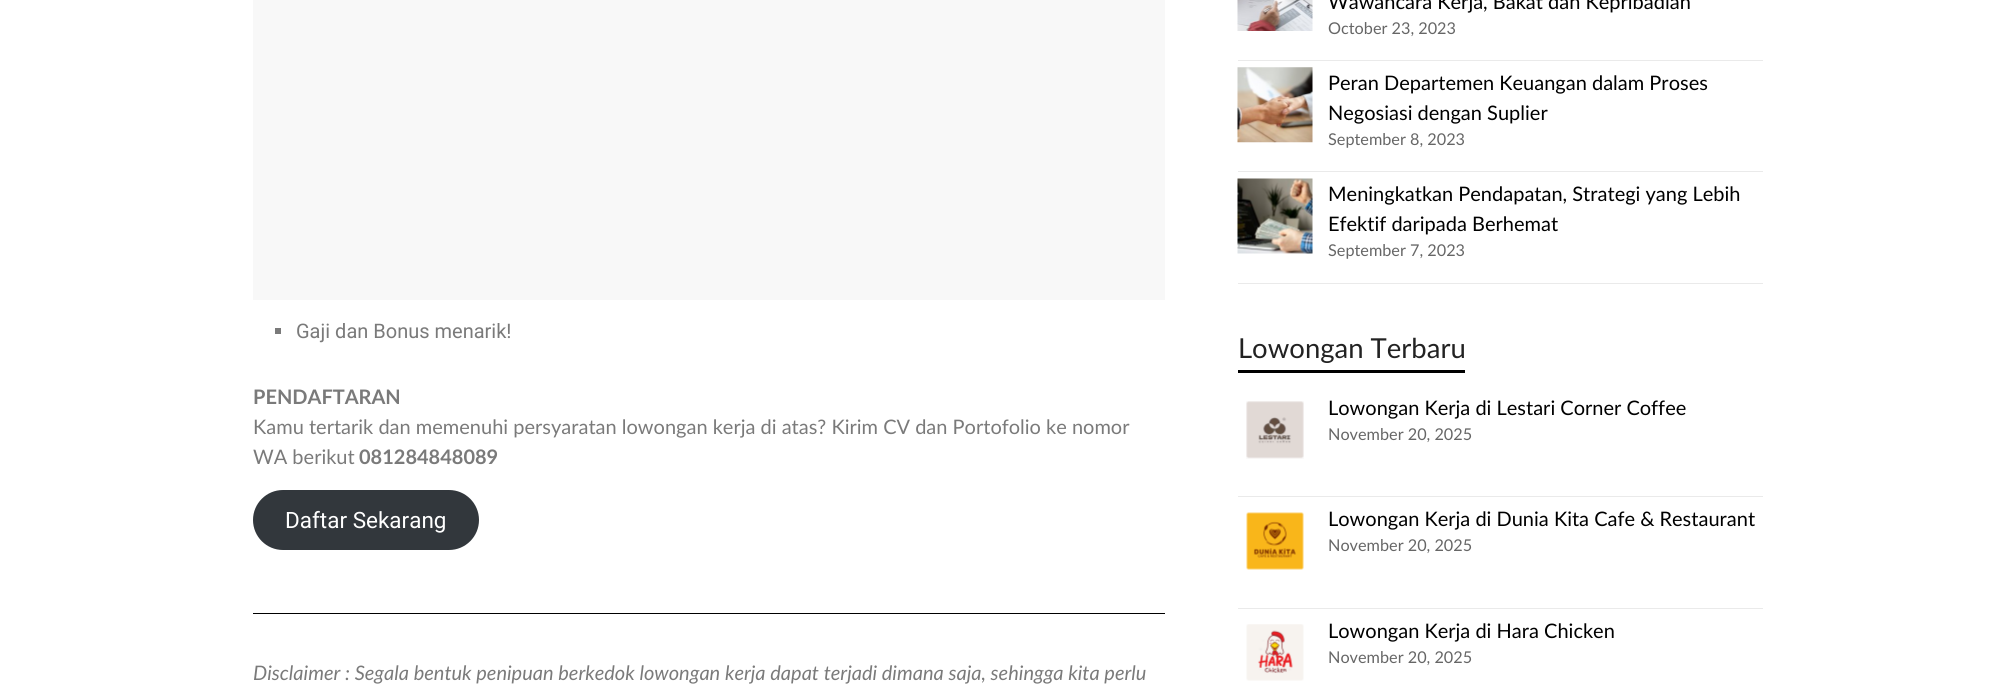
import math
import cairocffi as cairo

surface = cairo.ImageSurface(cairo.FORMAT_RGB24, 2002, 696)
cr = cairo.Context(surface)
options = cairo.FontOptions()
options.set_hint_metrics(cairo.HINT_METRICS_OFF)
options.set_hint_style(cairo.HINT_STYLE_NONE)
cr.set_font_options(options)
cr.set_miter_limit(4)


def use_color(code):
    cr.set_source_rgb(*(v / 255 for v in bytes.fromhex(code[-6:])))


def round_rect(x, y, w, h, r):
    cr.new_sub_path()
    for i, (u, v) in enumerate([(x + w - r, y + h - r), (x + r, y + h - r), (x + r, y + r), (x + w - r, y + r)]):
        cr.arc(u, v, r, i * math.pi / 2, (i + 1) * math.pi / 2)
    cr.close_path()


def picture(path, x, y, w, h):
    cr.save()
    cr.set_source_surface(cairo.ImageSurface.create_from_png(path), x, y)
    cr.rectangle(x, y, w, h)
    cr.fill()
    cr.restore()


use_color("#ffffff")
cr.paint()
use_color("#f8f8f8")
cr.rectangle(253, 0, 912, 300)
cr.fill()
use_color("#7a7a7a")
cr.rectangle(275, 328, 6, 6)
cr.fill()
cr.select_font_face("Roboto")
cr.set_font_size(20)
cr.move_to(296, 338)
cr.show_text("Gaji dan Bonus menarik!")
cr.select_font_face("Lato", cairo.FONT_SLANT_NORMAL, cairo.FONT_WEIGHT_BOLD)
cr.move_to(253, 404)
cr.show_text("PENDAFTARAN")
cr.select_font_face("Lato")
cr.move_to(253, 434)
cr.show_text("Kamu tertarik dan memenuhi persyaratan lowongan kerja di atas? Kirim CV dan Portofolio ke nomor")
cr.move_to(253, 464)
cr.show_text("WA berikut")
cr.select_font_face("Lato", cairo.FONT_SLANT_NORMAL, cairo.FONT_WEIGHT_BOLD)
cr.move_to(359, 464)
cr.show_text("081284848089")
use_color("#32373c")
round_rect(253, 490, 226, 60, 30)
cr.fill()
cr.select_font_face("Roboto")
cr.set_font_size(22.5)
use_color("#ffffff")
cr.move_to(285, 528)
cr.show_text("Daftar Sekarang")
use_color("#000000")
cr.rectangle(253, 613, 912, 1)
cr.fill()
cr.select_font_face("Lato", cairo.FONT_SLANT_ITALIC)
cr.set_font_size(20)
use_color("#7a7a7a")
cr.move_to(253, 680)
cr.show_text("Disclaimer : Segala bentuk penipuan berkedok lowongan kerja dapat terjadi dimana saja, sehingga kita perlu")
use_color("#eaeaea")
cr.rectangle(1238, 60, 525, 1)
cr.fill()
picture("img1.png", 1237, 0, 76, 31)
cr.select_font_face("Lato")
use_color("#000000")
cr.move_to(1328, 9)
cr.show_text("Wawancara Kerja, Bakat dan Kepribadian")
cr.set_font_size(16.25)
use_color("#666666")
cr.move_to(1328, 34)
cr.show_text("October 23, 2023")
use_color("#eaeaea")
cr.rectangle(1238, 171, 525, 1)
cr.fill()
picture("img2.png", 1237, 67, 76, 76)
cr.set_font_size(20)
use_color("#000000")
cr.move_to(1328, 90)
cr.show_text("Peran Departemen Keuangan dalam Proses")
cr.move_to(1328, 120)
cr.show_text("Negosiasi dengan Suplier")
cr.set_font_size(16.25)
use_color("#666666")
cr.move_to(1328, 145)
cr.show_text("September 8, 2023")
use_color("#eaeaea")
cr.rectangle(1238, 283, 525, 1)
cr.fill()
picture("img3.png", 1237, 178, 76, 76)
cr.set_font_size(20)
use_color("#000000")
cr.move_to(1328, 201)
cr.show_text("Meningkatkan Pendapatan, Strategi yang Lebih")
cr.move_to(1328, 231)
cr.show_text("Efektif daripada Berhemat")
cr.set_font_size(16.25)
use_color("#666666")
cr.move_to(1328, 256)
cr.show_text("September 7, 2023")
cr.set_font_size(27.5)
use_color("#222222")
cr.move_to(1238, 358)
cr.show_text("Lowongan Terbaru")
use_color("#000000")
cr.rectangle(1238, 370, 227, 3)
cr.fill()
use_color("#eaeaea")
cr.rectangle(1238, 496, 525, 1)
cr.fill()
picture("img4.png", 1246, 401, 58, 58)
cr.set_font_size(20)
use_color("#000000")
cr.move_to(1328, 415)
cr.show_text("Lowongan Kerja di Lestari Corner Coffee")
cr.set_font_size(16.25)
use_color("#666666")
cr.move_to(1328, 440)
cr.show_text("November 20, 2025")
use_color("#eaeaea")
cr.rectangle(1238, 608, 525, 1)
cr.fill()
picture("img5.png", 1246, 512, 58, 58)
cr.set_font_size(20)
use_color("#000000")
cr.move_to(1328, 526)
cr.show_text("Lowongan Kerja di Dunia Kita Cafe & Restaurant")
cr.set_font_size(16.25)
use_color("#666666")
cr.move_to(1328, 551)
cr.show_text("November 20, 2025")
picture("img6.png", 1246, 624, 58, 57)
cr.set_font_size(20)
use_color("#000000")
cr.move_to(1328, 638)
cr.show_text("Lowongan Kerja di Hara Chicken")
cr.set_font_size(16.25)
use_color("#666666")
cr.move_to(1328, 663)
cr.show_text("November 20, 2025")
surface.write_to_png("result.png")
